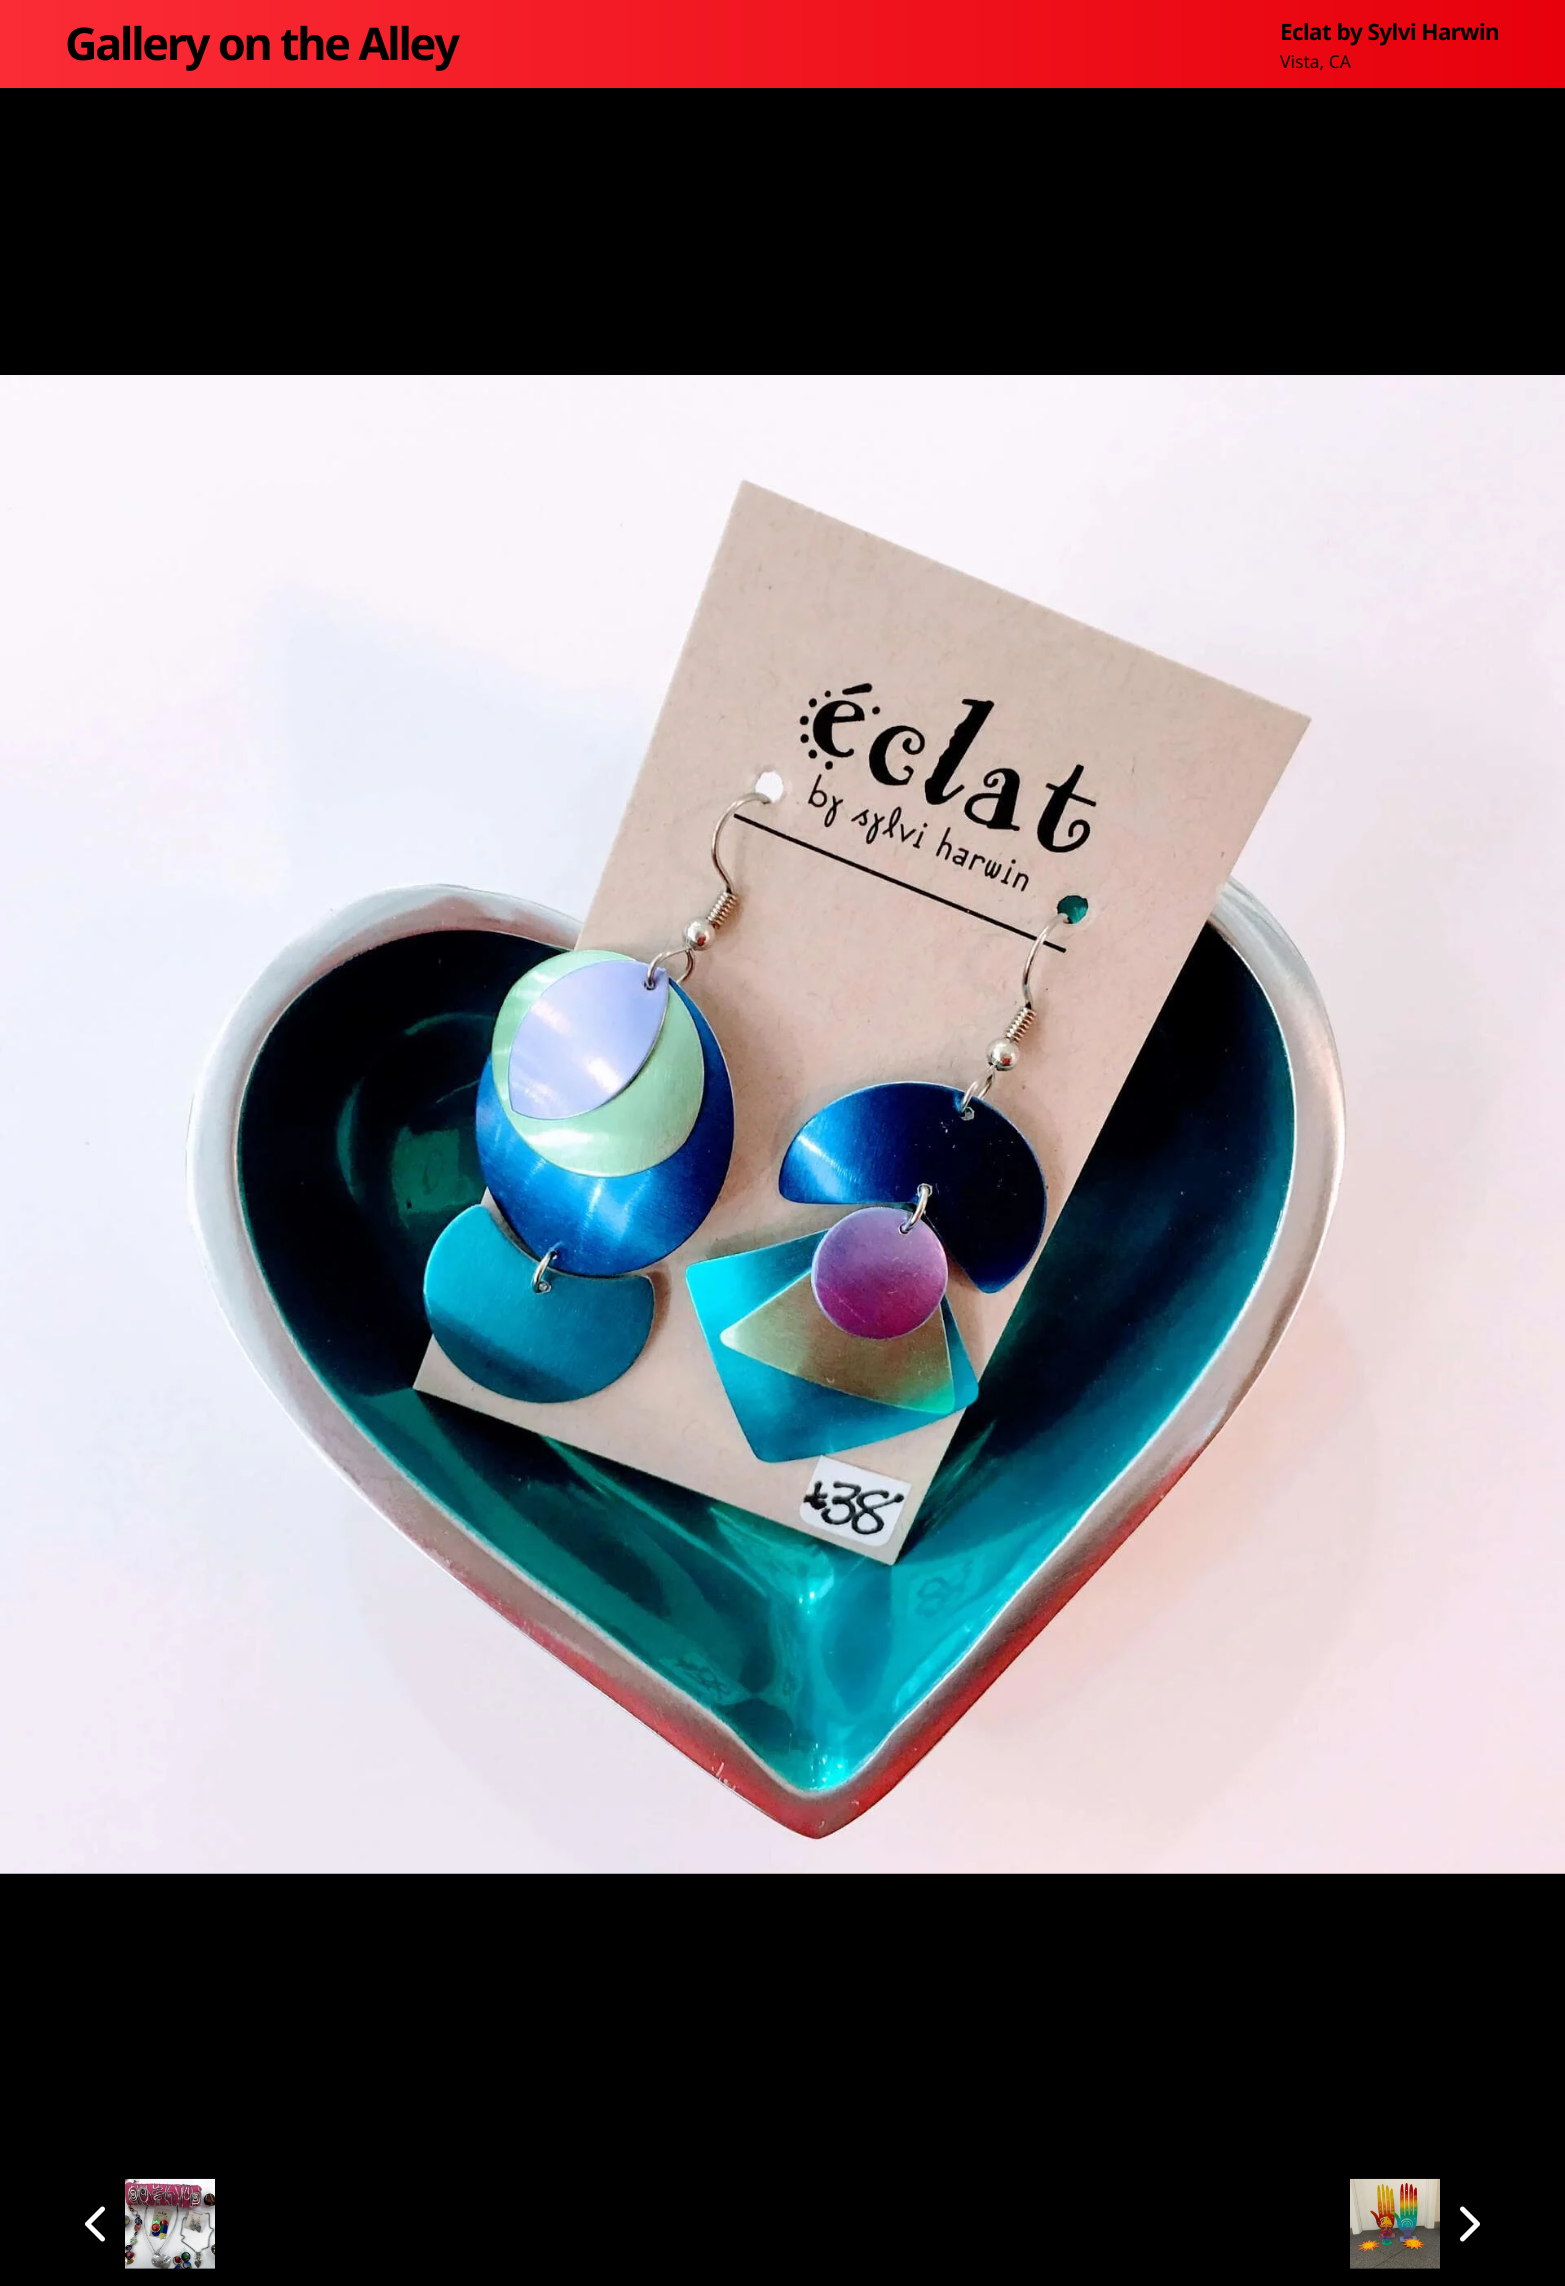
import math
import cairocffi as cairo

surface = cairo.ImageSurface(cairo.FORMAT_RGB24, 1565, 2286)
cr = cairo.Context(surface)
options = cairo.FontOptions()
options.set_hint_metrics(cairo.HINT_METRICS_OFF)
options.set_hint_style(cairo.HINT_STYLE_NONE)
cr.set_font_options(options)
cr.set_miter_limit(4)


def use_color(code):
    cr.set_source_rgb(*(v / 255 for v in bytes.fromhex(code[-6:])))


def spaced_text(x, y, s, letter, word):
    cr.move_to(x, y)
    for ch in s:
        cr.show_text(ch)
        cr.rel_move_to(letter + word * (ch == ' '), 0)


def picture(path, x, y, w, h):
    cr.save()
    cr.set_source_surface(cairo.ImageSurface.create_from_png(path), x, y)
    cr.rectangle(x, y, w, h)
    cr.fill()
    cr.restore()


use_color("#000000")
cr.paint()
gradient = cairo.LinearGradient(0, 44, 1565, 44)
gradient.add_color_stop_rgba(0, 0.984, 0.173, 0.212, 1)
gradient.add_color_stop_rgba(1, 0.906, 0, 0.043, 1)
cr.set_source(gradient)
cr.rectangle(0, 0, 1565, 88)
cr.fill()
cr.select_font_face("Noto Sans", cairo.FONT_SLANT_NORMAL, cairo.FONT_WEIGHT_BOLD)
cr.set_font_size(45)
use_color("#000000")
spaced_text(65, 60, "Gallery on the Alley", -2.25, 0)
cr.set_font_size(22.5)
spaced_text(1280, 40, "Eclat by Sylvi Harwin", -0.6, 0)
cr.select_font_face("Noto Sans")
cr.set_font_size(17.5)
cr.move_to(1280, 68)
cr.show_text("Vista, CA")
picture("img1.png", 0, 375, 1565, 1499)
cr.new_path()
cr.move_to(102.5, 2239)
cr.line_to(87.5, 2224)
cr.line_to(102.5, 2209)
use_color("#ffffff")
cr.set_line_width(5)
cr.set_line_cap(cairo.LINE_CAP_ROUND)
cr.set_line_join(cairo.LINE_JOIN_ROUND)
cr.stroke()
picture("img2.png", 125, 2178, 90, 91)
picture("img3.png", 1350, 2178, 90, 91)
cr.new_path()
cr.move_to(1462.5, 2239)
cr.line_to(1477.5, 2224)
cr.line_to(1462.5, 2209)
cr.stroke()
surface.write_to_png("result.png")
